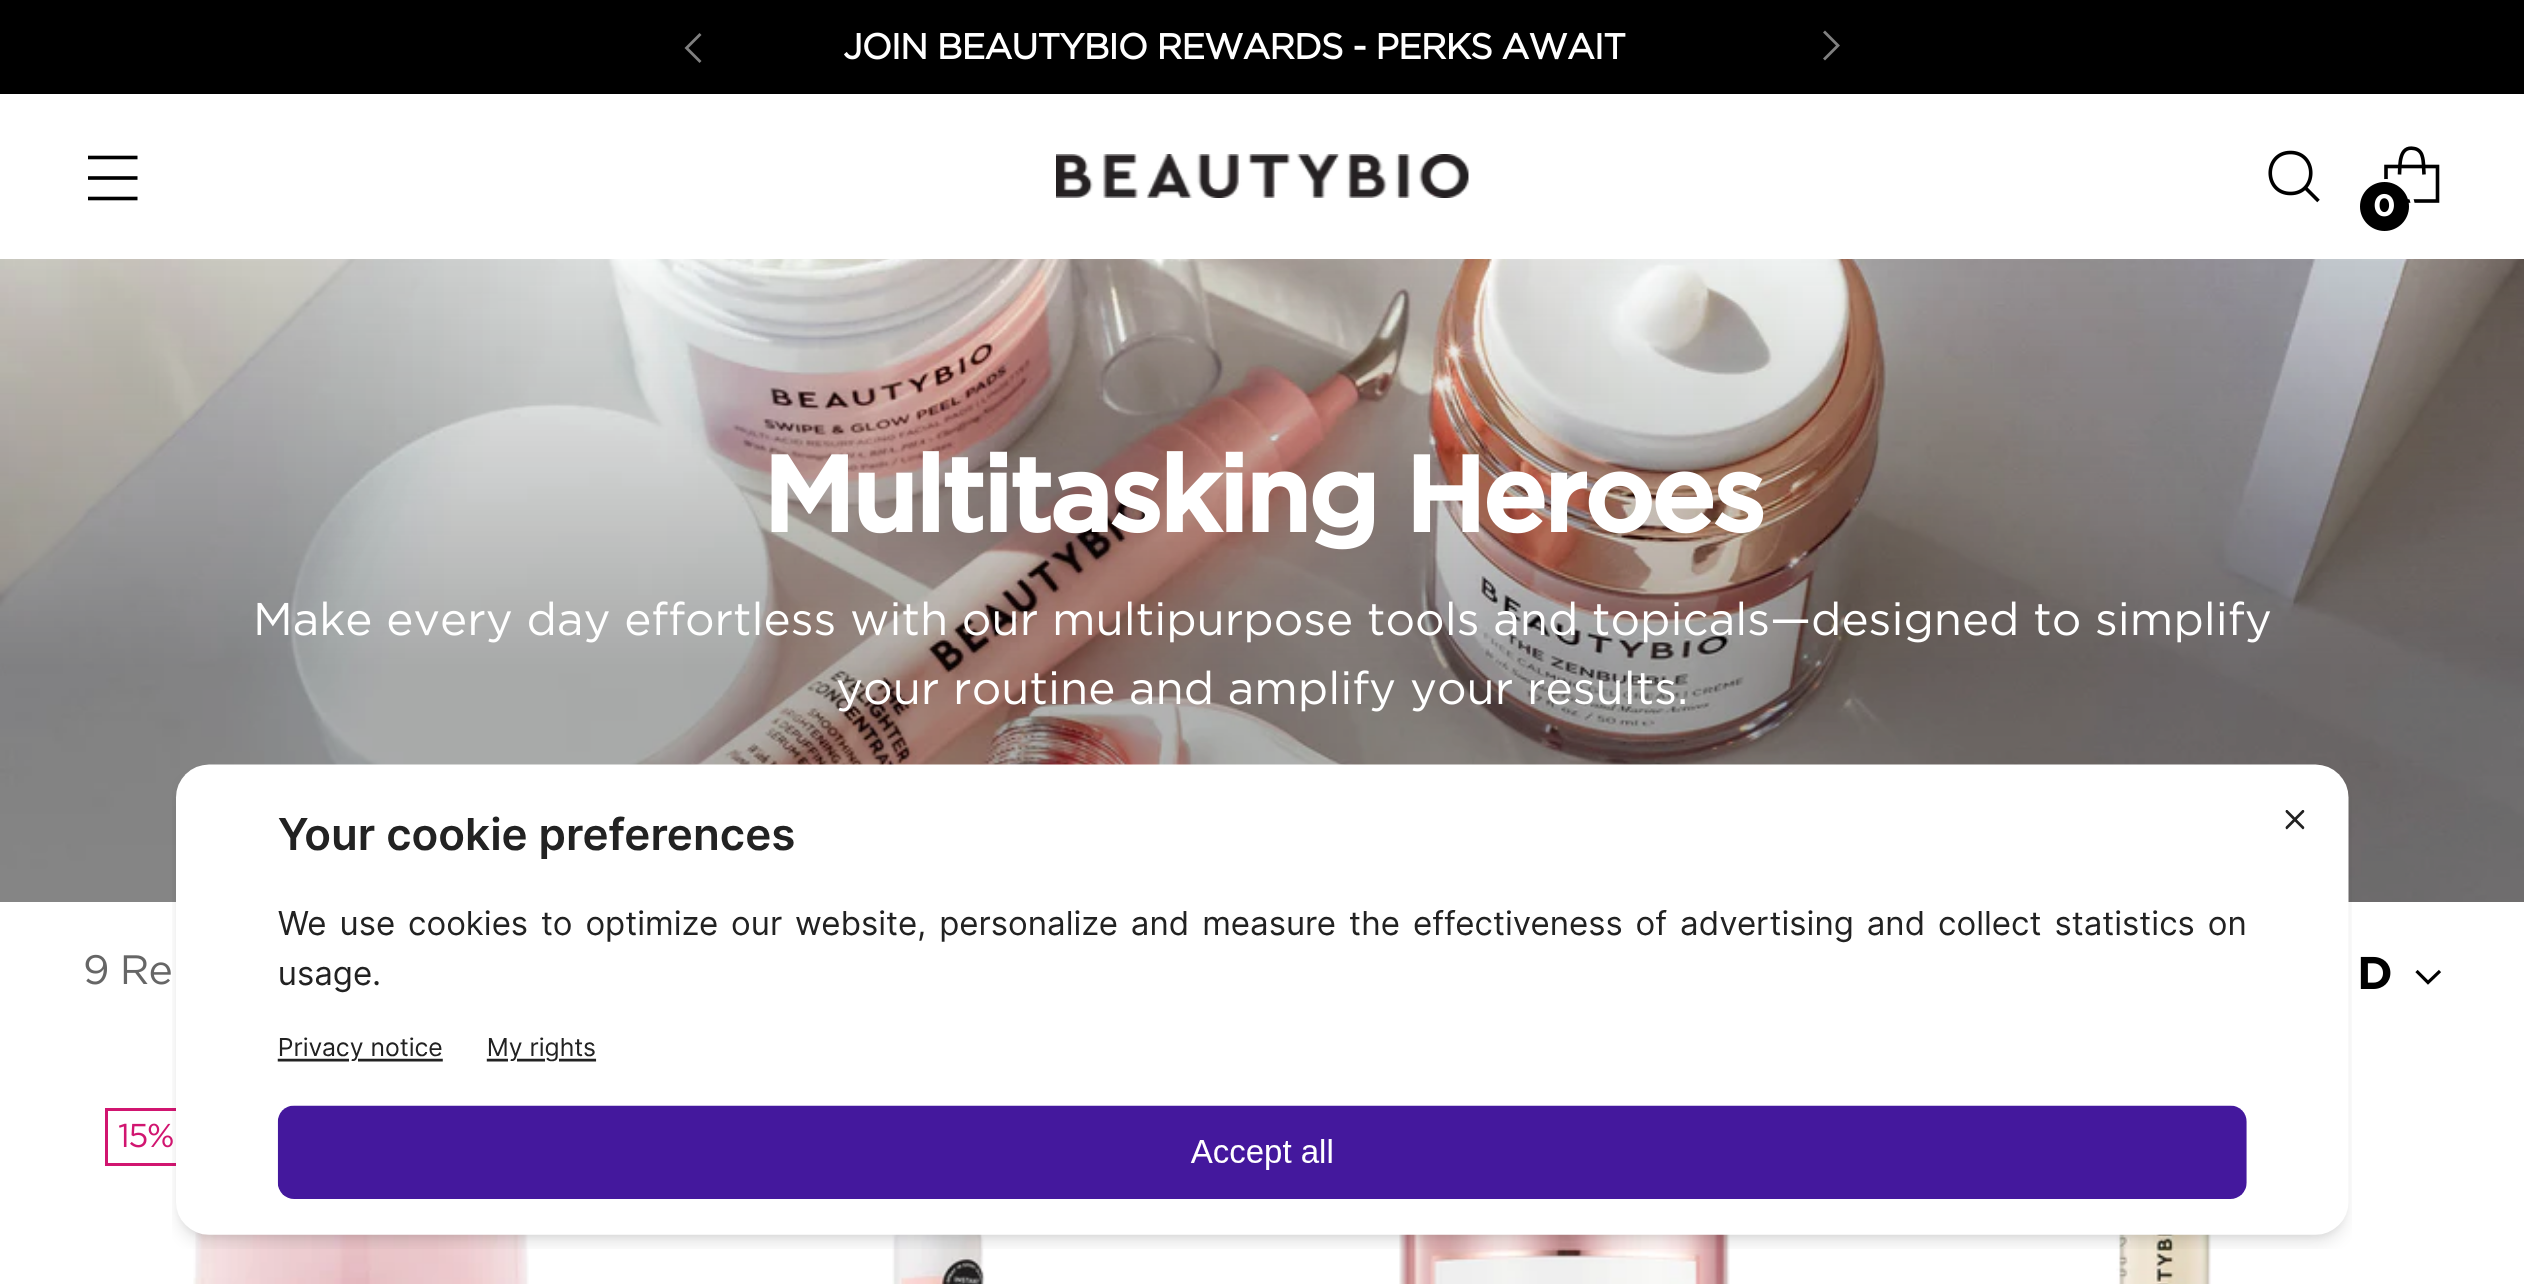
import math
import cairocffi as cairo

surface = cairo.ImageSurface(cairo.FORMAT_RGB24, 2524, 1284)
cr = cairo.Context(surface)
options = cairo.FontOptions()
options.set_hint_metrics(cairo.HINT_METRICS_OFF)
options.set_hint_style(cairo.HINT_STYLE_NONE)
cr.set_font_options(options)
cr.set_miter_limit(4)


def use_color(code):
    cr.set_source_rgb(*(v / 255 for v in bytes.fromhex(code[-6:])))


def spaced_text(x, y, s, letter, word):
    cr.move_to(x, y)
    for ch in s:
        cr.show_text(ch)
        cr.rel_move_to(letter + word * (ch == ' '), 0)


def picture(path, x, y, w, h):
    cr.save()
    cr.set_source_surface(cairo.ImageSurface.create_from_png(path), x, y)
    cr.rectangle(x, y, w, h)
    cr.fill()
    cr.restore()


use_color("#ffffff")
cr.paint()
use_color("#000000")
cr.rectangle(0, 0, 2524, 94)
cr.fill()
cr.new_path()
cr.move_to(700.5, 34)
cr.line_to(686.5, 48)
cr.line_to(700.5, 62)
use_color("#808080")
cr.set_line_width(2.8)
cr.stroke()
cr.new_path()
cr.move_to(1824, 59.5)
cr.line_to(1838, 45.5)
cr.line_to(1824, 31.5)
cr.stroke()
cr.select_font_face("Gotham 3", cairo.FONT_SLANT_NORMAL, cairo.FONT_WEIGHT_BOLD)
cr.set_font_size(35.6)
use_color("#ffffff")
spaced_text(843, 59, "JOIN BEAUTYBIO REWARDS - PERKS AWAIT", -1.05, 0)
cr.new_path()
cr.move_to(88, 178)
cr.line_to(137.5, 178)
cr.move_to(88, 157.5)
cr.line_to(137.5, 157.5)
cr.move_to(88, 198.5)
cr.line_to(137.5, 198.5)
use_color("#000000")
cr.set_line_width(3.6)
cr.stroke()
picture("img1.png", 1056, 154, 413, 44)
cr.new_path()
cr.move_to(2290.5, 193.5)
cr.curve_to(2317.5, 193.5, 2317.5, 152.5, 2290.5, 152.5)
cr.curve_to(2263.5, 152.5, 2263.5, 193.5, 2290.5, 193.5)
cr.close_path()
cr.set_line_cap(cairo.LINE_CAP_ROUND)
cr.stroke()
cr.new_path()
cr.move_to(2305.5, 188)
cr.line_to(2318.5, 201)
cr.set_line_cap(cairo.LINE_CAP_BUTT)
cr.stroke()
cr.new_path()
cr.move_to(2424, 174.5)
cr.curve_to(2423.5, 168.5, 2424, 161.5, 2422, 155.5)
cr.curve_to(2421, 152, 2418, 149, 2414, 148.5)
cr.curve_to(2399, 145.5, 2400, 164.5, 2399.5, 174.5)
cr.set_line_join(cairo.LINE_JOIN_BEVEL)
cr.stroke()
cr.new_path()
cr.move_to(2437.5, 201)
cr.line_to(2437.5, 166.5)
cr.line_to(2386, 166.5)
cr.line_to(2386, 201)
cr.close_path()
cr.set_line_join(cairo.LINE_JOIN_MITER)
cr.stroke()
cr.arc(2386, 208, 27, 0, 2 * math.pi)
use_color("#ffffff")
cr.set_line_width(4)
cr.stroke()
use_color("#000000")
cr.arc(2384.5, 206.5, 24.5, 0, 2 * math.pi)
cr.fill()
cr.select_font_face("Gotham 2", cairo.FONT_SLANT_NORMAL, cairo.FONT_WEIGHT_BOLD)
cr.set_font_size(31)
use_color("#ffffff")
spaced_text(2373, 216, "0", -1, 0)
picture("img2.png", 0, 259, 2524, 643)
cr.select_font_face("Gotham", cairo.FONT_SLANT_NORMAL, cairo.FONT_WEIGHT_BOLD)
cr.set_font_size(106.5)
spaced_text(762, 532, "Multitasking Heroes", -3.2, 0)
cr.select_font_face("Gotham")
cr.set_font_size(45.8)
cr.move_to(253, 635)
cr.show_text("Make every day effortless with our multipurpose tools and topicals—designed to simplify")
cr.move_to(836, 704)
cr.show_text("your routine and amplify your results.")
cr.set_font_size(41)
use_color("#666666")
spaced_text(83, 984, "9 Re", -1, 0)
cr.select_font_face("Gotham 2", cairo.FONT_SLANT_NORMAL, cairo.FONT_WEIGHT_BOLD)
cr.set_font_size(45.8)
use_color("#000000")
spaced_text(2357, 989, "D", -1.5, 0)
cr.new_path()
cr.move_to(2416.5, 971)
cr.line_to(2428, 982.5)
cr.line_to(2440, 971)
cr.set_line_width(3.2)
cr.stroke()
cr.rectangle(106.5, 1109.5, 129, 55)
use_color("#d11570")
cr.set_line_width(3)
cr.stroke()
cr.select_font_face("Gotham")
cr.set_font_size(33)
spaced_text(118, 1147, "15%", -1.5, 0)
picture("img3.png", 193, 1230, 336, 54)
picture("img4.png", 892, 1234, 93, 50)
picture("img5.png", 1399, 1234, 331, 50)
picture("img6.png", 2116, 1234, 96, 50)
picture("img7.png", 172, 764, 2180, 485)
surface.write_to_png("result.png")
